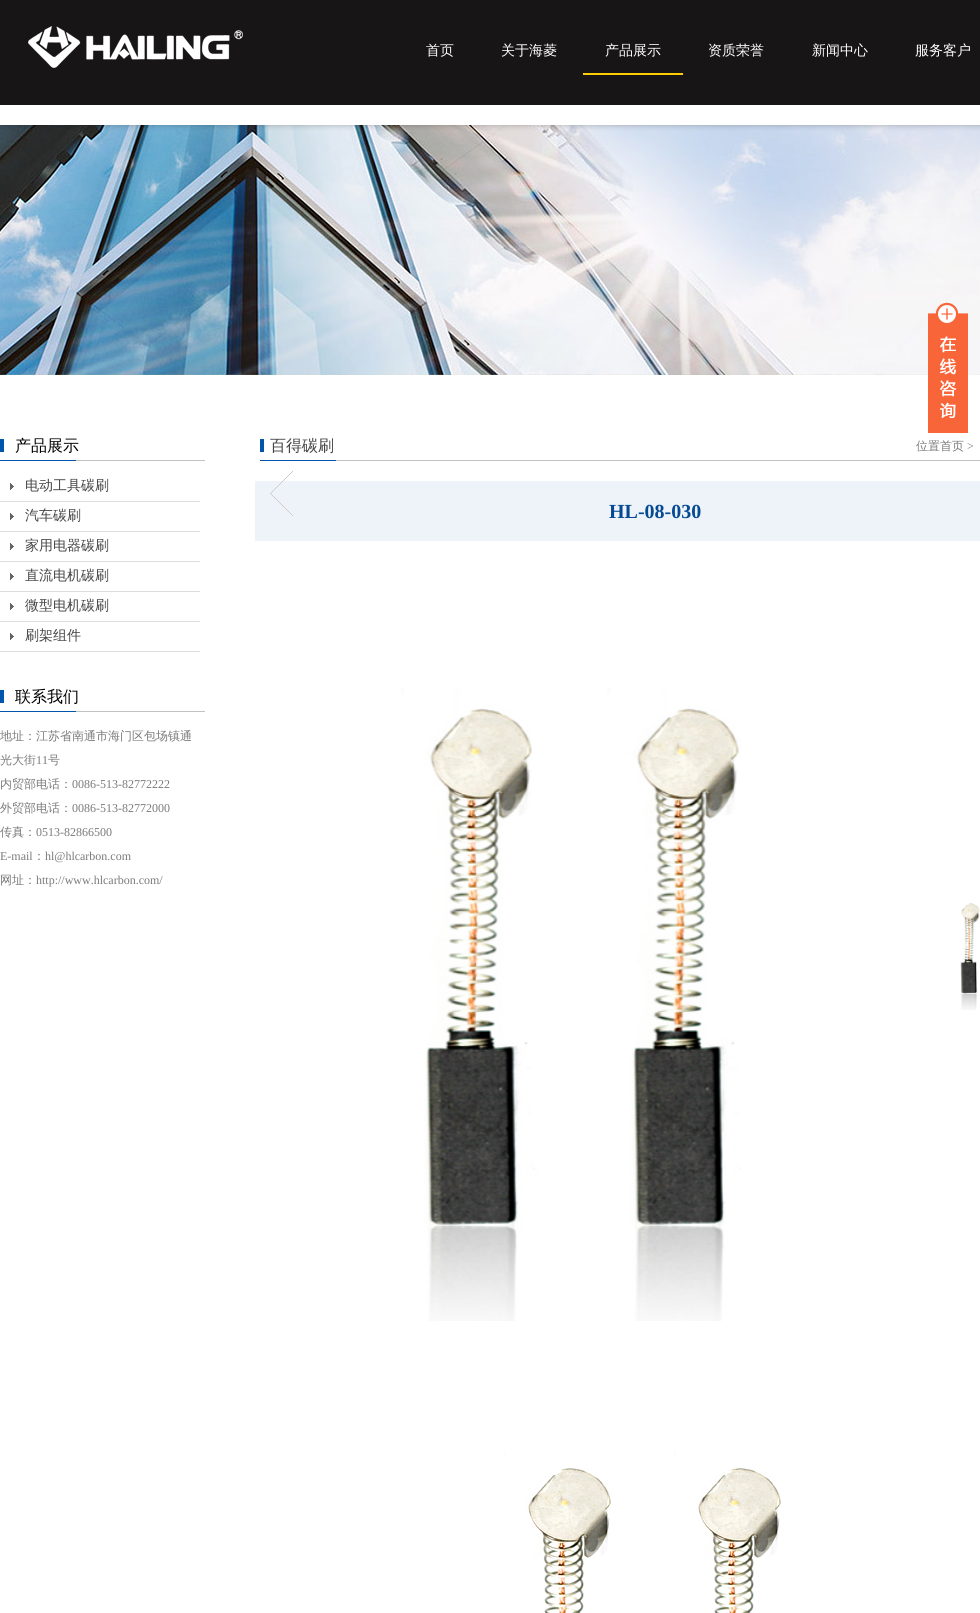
import math
import cairocffi as cairo

surface = cairo.ImageSurface(cairo.FORMAT_RGB24, 980, 1613)
cr = cairo.Context(surface)
options = cairo.FontOptions()
options.set_hint_metrics(cairo.HINT_METRICS_OFF)
options.set_hint_style(cairo.HINT_STYLE_NONE)
cr.set_font_options(options)
cr.set_miter_limit(4)


def use_color(code):
    cr.set_source_rgb(*(v / 255 for v in bytes.fromhex(code[-6:])))


def picture(path, x, y, w, h):
    cr.save()
    cr.set_source_surface(cairo.ImageSurface.create_from_png(path), x, y)
    cr.rectangle(x, y, w, h)
    cr.fill()
    cr.restore()


use_color("#ffffff")
cr.paint()
use_color("#171516")
cr.rectangle(0, 0, 980, 105)
cr.fill()
picture("img1.png", 28, 26, 215, 42)
cr.select_font_face("WenQuanYi Zen Hei Medium")
cr.set_font_size(14)
use_color("#ffffff")
cr.move_to(426, 55)
cr.show_text("首页")
cr.move_to(501, 55)
cr.show_text("关于海菱")
use_color("#ffce00")
cr.rectangle(583, 73, 100, 2)
cr.fill()
use_color("#ffffff")
cr.move_to(605, 55)
cr.show_text("产品展示")
cr.move_to(708, 55)
cr.show_text("资质荣誉")
cr.move_to(812, 55)
cr.show_text("新闻中心")
cr.move_to(915, 55)
cr.show_text("服务客户")
picture("img2.png", 0, 125, 980, 250)
picture("img3.png", 928, 302, 40, 131)
picture("img4.png", 0, 439, 205, 22)
cr.set_font_size(16)
use_color("#000000")
cr.move_to(15, 451)
cr.show_text("产品展示")
picture("img5.png", 260, 439, 720, 22)
use_color("#454545")
cr.move_to(270, 451)
cr.show_text("百得碳刷")
cr.set_font_size(12)
use_color("#7b7a7a")
cr.move_to(916, 450)
cr.show_text("位置首页")
cr.select_font_face("Liberation Serif")
cr.move_to(967, 450)
cr.show_text(">")
picture("img6.png", 10, 483, 4, 7)
use_color("#dddddd")
cr.rectangle(0, 501, 200, 1)
cr.fill()
cr.select_font_face("WenQuanYi Zen Hei Medium")
cr.set_font_size(14)
use_color("#454545")
cr.move_to(25, 490)
cr.show_text("电动工具碳刷")
picture("img6.png", 10, 513, 4, 7)
use_color("#dddddd")
cr.rectangle(0, 531, 200, 1)
cr.fill()
use_color("#454545")
cr.move_to(25, 520)
cr.show_text("汽车碳刷")
picture("img6.png", 10, 543, 4, 7)
use_color("#dddddd")
cr.rectangle(0, 561, 200, 1)
cr.fill()
use_color("#454545")
cr.move_to(25, 550)
cr.show_text("家用电器碳刷")
picture("img6.png", 10, 573, 4, 7)
use_color("#dddddd")
cr.rectangle(0, 591, 200, 1)
cr.fill()
use_color("#454545")
cr.move_to(25, 580)
cr.show_text("直流电机碳刷")
picture("img6.png", 10, 603, 4, 7)
use_color("#dddddd")
cr.rectangle(0, 621, 200, 1)
cr.fill()
use_color("#454545")
cr.move_to(25, 610)
cr.show_text("微型电机碳刷")
picture("img6.png", 10, 633, 4, 7)
use_color("#dddddd")
cr.rectangle(0, 651, 200, 1)
cr.fill()
use_color("#454545")
cr.move_to(25, 640)
cr.show_text("刷架组件")
picture("img4.png", 0, 690, 205, 22)
cr.set_font_size(16)
use_color("#000000")
cr.move_to(15, 702)
cr.show_text("联系我们")
cr.set_font_size(12)
use_color("#7b7a7a")
cr.move_to(0, 740)
cr.show_text("地址：江苏省南通市海门区包场镇通")
cr.move_to(0, 764)
cr.show_text("光大街")
cr.select_font_face("Liberation Serif")
cr.move_to(36, 764)
cr.show_text("11")
cr.select_font_face("WenQuanYi Zen Hei Medium")
cr.move_to(48, 764)
cr.show_text("号")
cr.move_to(0, 788)
cr.show_text("内贸部电话：")
cr.select_font_face("Liberation Serif")
cr.move_to(72, 788)
cr.show_text("0086-513-82772222")
cr.select_font_face("WenQuanYi Zen Hei Medium")
cr.move_to(0, 812)
cr.show_text("外贸部电话：")
cr.select_font_face("Liberation Serif")
cr.move_to(72, 812)
cr.show_text("0086-513-82772000")
cr.select_font_face("WenQuanYi Zen Hei Medium")
cr.move_to(0, 836)
cr.show_text("传真：")
cr.select_font_face("Liberation Serif")
cr.move_to(36, 836)
cr.show_text("0513-82866500")
cr.move_to(0, 860)
cr.show_text("E-mail")
cr.select_font_face("WenQuanYi Zen Hei Medium")
cr.move_to(33, 860)
cr.show_text("：")
cr.select_font_face("Liberation Serif")
cr.move_to(45, 860)
cr.show_text("hl@hlcarbon.com")
cr.select_font_face("WenQuanYi Zen Hei Medium")
cr.move_to(0, 884)
cr.show_text("网址：")
cr.select_font_face("Liberation Serif")
cr.move_to(36, 884)
cr.show_text("http://www.hlcarbon.com/")
use_color("#edf3f9")
cr.rectangle(255, 481, 725, 60)
cr.fill()
picture("img7.png", 270, 471, 23, 45)
cr.select_font_face("Liberation Serif", cairo.FONT_SLANT_NORMAL, cairo.FONT_WEIGHT_BOLD)
cr.set_font_size(20)
use_color("#064994")
cr.move_to(609, 518)
cr.show_text("HL-08-030")
picture("img8.png", 401, 688, 340, 633)
picture("img9.png", 960, 903, 20, 107)
picture("img10.png", 504, 1451, 277, 162)
surface.write_to_png("result.png")
